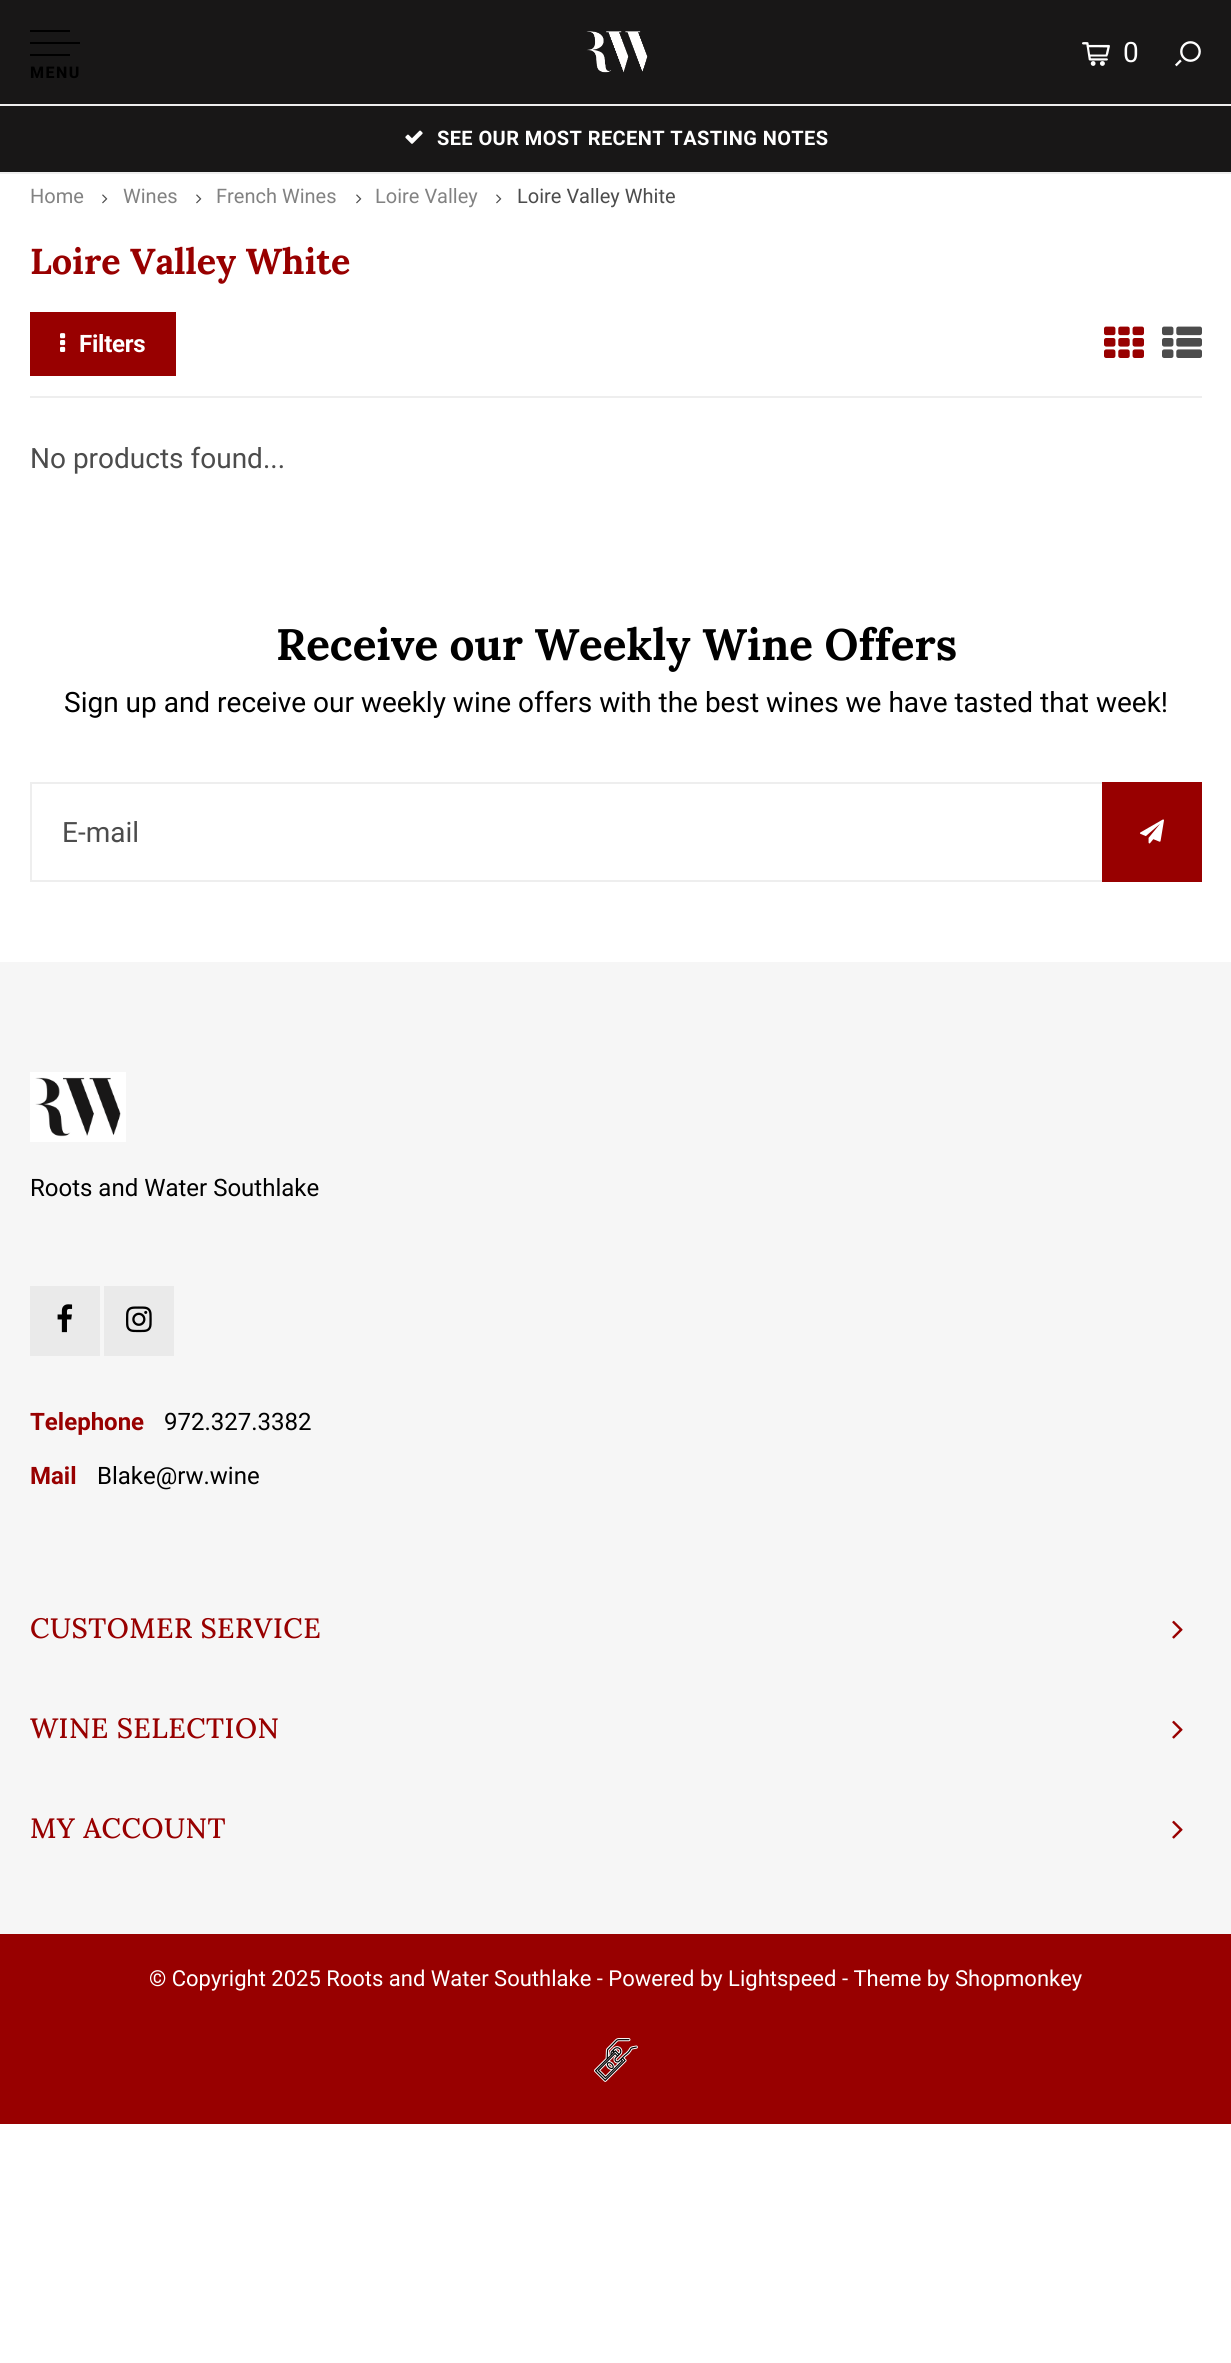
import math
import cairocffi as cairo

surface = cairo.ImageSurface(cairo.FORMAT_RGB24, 1231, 2363)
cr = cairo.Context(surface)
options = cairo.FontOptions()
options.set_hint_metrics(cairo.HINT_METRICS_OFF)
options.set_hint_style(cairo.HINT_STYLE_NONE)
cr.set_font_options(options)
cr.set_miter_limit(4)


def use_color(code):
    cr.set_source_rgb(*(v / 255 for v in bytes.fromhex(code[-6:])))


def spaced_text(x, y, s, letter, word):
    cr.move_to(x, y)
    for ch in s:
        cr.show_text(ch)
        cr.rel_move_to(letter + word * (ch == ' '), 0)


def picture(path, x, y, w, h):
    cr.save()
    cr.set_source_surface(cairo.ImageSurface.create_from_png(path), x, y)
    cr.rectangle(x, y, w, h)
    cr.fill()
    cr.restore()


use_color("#ffffff")
cr.paint()
use_color("#181717")
cr.rectangle(0, 0, 1231, 172)
cr.fill()
use_color("#eeeeee")
cr.rectangle(0, 104, 1231, 2)
cr.fill()
picture("img1.png", 586, 31, 62, 42)
picture("img2.png", 1082, 42, 28, 24)
cr.select_font_face("Roboto")
cr.set_font_size(28)
use_color("#ffffff")
cr.move_to(1123, 62)
cr.show_text("0")
picture("img3.png", 1175, 41, 26, 26)
use_color("#000000")
cr.rectangle(30, 30, 40, 2)
cr.fill()
cr.rectangle(30, 42, 50, 2)
cr.fill()
cr.rectangle(30, 54, 40, 2)
cr.fill()
cr.select_font_face("Roboto ExtraBold")
cr.set_font_size(16)
spaced_text(30, 78, "MENU", 1.5, 0)
use_color("#eeeeee")
cr.rectangle(0, 172, 1231, 2)
cr.fill()
picture("img4.png", 405, 130, 18, 14)
cr.select_font_face("Roboto", cairo.FONT_SLANT_NORMAL, cairo.FONT_WEIGHT_BOLD)
cr.set_font_size(20)
use_color("#ffffff")
spaced_text(437, 145, "SEE OUR MOST RECENT TASTING NOTES", 0.4, 0)
cr.select_font_face("Roboto")
use_color("#828282")
cr.move_to(30, 203)
cr.show_text("Home")
picture("img5.png", 102, 194, 6, 10)
cr.move_to(123, 203)
cr.show_text("Wines")
picture("img5.png", 196, 194, 6, 10)
cr.move_to(216, 203)
cr.show_text("French Wines")
picture("img5.png", 356, 194, 6, 10)
cr.move_to(375, 203)
cr.show_text("Loire Valley")
picture("img5.png", 496, 194, 6, 10)
use_color("#4c4c4c")
cr.move_to(517, 203)
cr.show_text("Loire Valley White")
cr.select_font_face("Lora", cairo.FONT_SLANT_NORMAL, cairo.FONT_WEIGHT_BOLD)
cr.set_font_size(36)
use_color("#980000")
cr.move_to(30, 274)
cr.show_text("Loire Valley White")
use_color("#eeeeee")
cr.rectangle(30, 396, 1172, 2)
cr.fill()
use_color("#980000")
cr.rectangle(30, 312, 146, 64)
cr.fill()
picture("img6.png", 60, 333, 6, 19)
cr.select_font_face("Roboto", cairo.FONT_SLANT_NORMAL, cairo.FONT_WEIGHT_BOLD)
cr.set_font_size(24)
use_color("#ffffff")
spaced_text(79, 352, "Filters", -0.25, 0)
picture("img7.png", 1104, 326, 40, 32)
picture("img8.png", 1162, 326, 40, 32)
cr.select_font_face("Roboto")
cr.set_font_size(28)
use_color("#4c4c4c")
cr.move_to(30, 468)
cr.show_text("No products found...")
cr.select_font_face("Lora", cairo.FONT_SLANT_NORMAL, cairo.FONT_WEIGHT_BOLD)
cr.set_font_size(44)
use_color("#000000")
cr.move_to(276, 660)
cr.show_text("Receive our Weekly Wine Offers")
cr.select_font_face("Roboto")
cr.set_font_size(28)
cr.move_to(64, 712)
cr.show_text("Sign up and receive our weekly wine offers with the best wines we have tasted that week!")
use_color("#eeeeee")
cr.rectangle(30, 782, 1072, 2)
cr.fill()
cr.rectangle(30, 880, 1072, 2)
cr.fill()
cr.rectangle(30, 782, 2, 100)
cr.fill()
use_color("#4c4c4c")
cr.move_to(62, 842)
cr.show_text("E-mail")
use_color("#980000")
cr.rectangle(1102, 782, 100, 100)
cr.fill()
picture("img9.png", 1140, 819, 24, 25)
use_color("#f6f6f6")
cr.rectangle(0, 962, 1231, 972)
cr.fill()
picture("img10.png", 30, 1072, 96, 70)
cr.set_font_size(24)
use_color("#000000")
cr.move_to(30, 1196)
cr.show_text("Roots and Water Southlake")
use_color("#eaeaea")
cr.rectangle(30, 1286, 70, 70)
cr.fill()
picture("img11.png", 57, 1304, 16, 29)
cr.rectangle(104, 1286, 70, 70)
cr.fill()
picture("img12.png", 126, 1306, 26, 27)
cr.select_font_face("Roboto", cairo.FONT_SLANT_NORMAL, cairo.FONT_WEIGHT_BOLD)
use_color("#980000")
cr.move_to(30, 1430)
cr.show_text("Telephone")
cr.select_font_face("Roboto")
use_color("#000000")
cr.move_to(164, 1430)
cr.show_text("972.327.3382")
cr.select_font_face("Roboto", cairo.FONT_SLANT_NORMAL, cairo.FONT_WEIGHT_BOLD)
use_color("#980000")
cr.move_to(30, 1484)
cr.show_text("Mail")
cr.select_font_face("Roboto")
use_color("#000000")
cr.move_to(97, 1484)
cr.show_text("Blake@rw.wine")
cr.select_font_face("Lora Medium")
cr.set_font_size(28)
use_color("#980000")
spaced_text(30, 1638, "CUSTOMER SERVICE", 0.5, 0)
picture("img13.png", 1172, 1620, 11, 19)
spaced_text(30, 1738, "WINE SELECTION", 0.5, 0)
picture("img13.png", 1172, 1720, 11, 19)
spaced_text(30, 1838, "MY ACCOUNT", 0.5, 0)
picture("img13.png", 1172, 1820, 11, 19)
cr.rectangle(0, 1934, 1231, 190)
cr.fill()
cr.select_font_face("Roboto")
cr.set_font_size(22)
use_color("#ffffff")
cr.move_to(149, 1986)
cr.show_text("© Copyright 2025 Roots and Water Southlake - Powered by Lightspeed - Theme by Shopmonkey")
picture("img14.png", 594, 2038, 44, 44)
surface.write_to_png("result.png")
